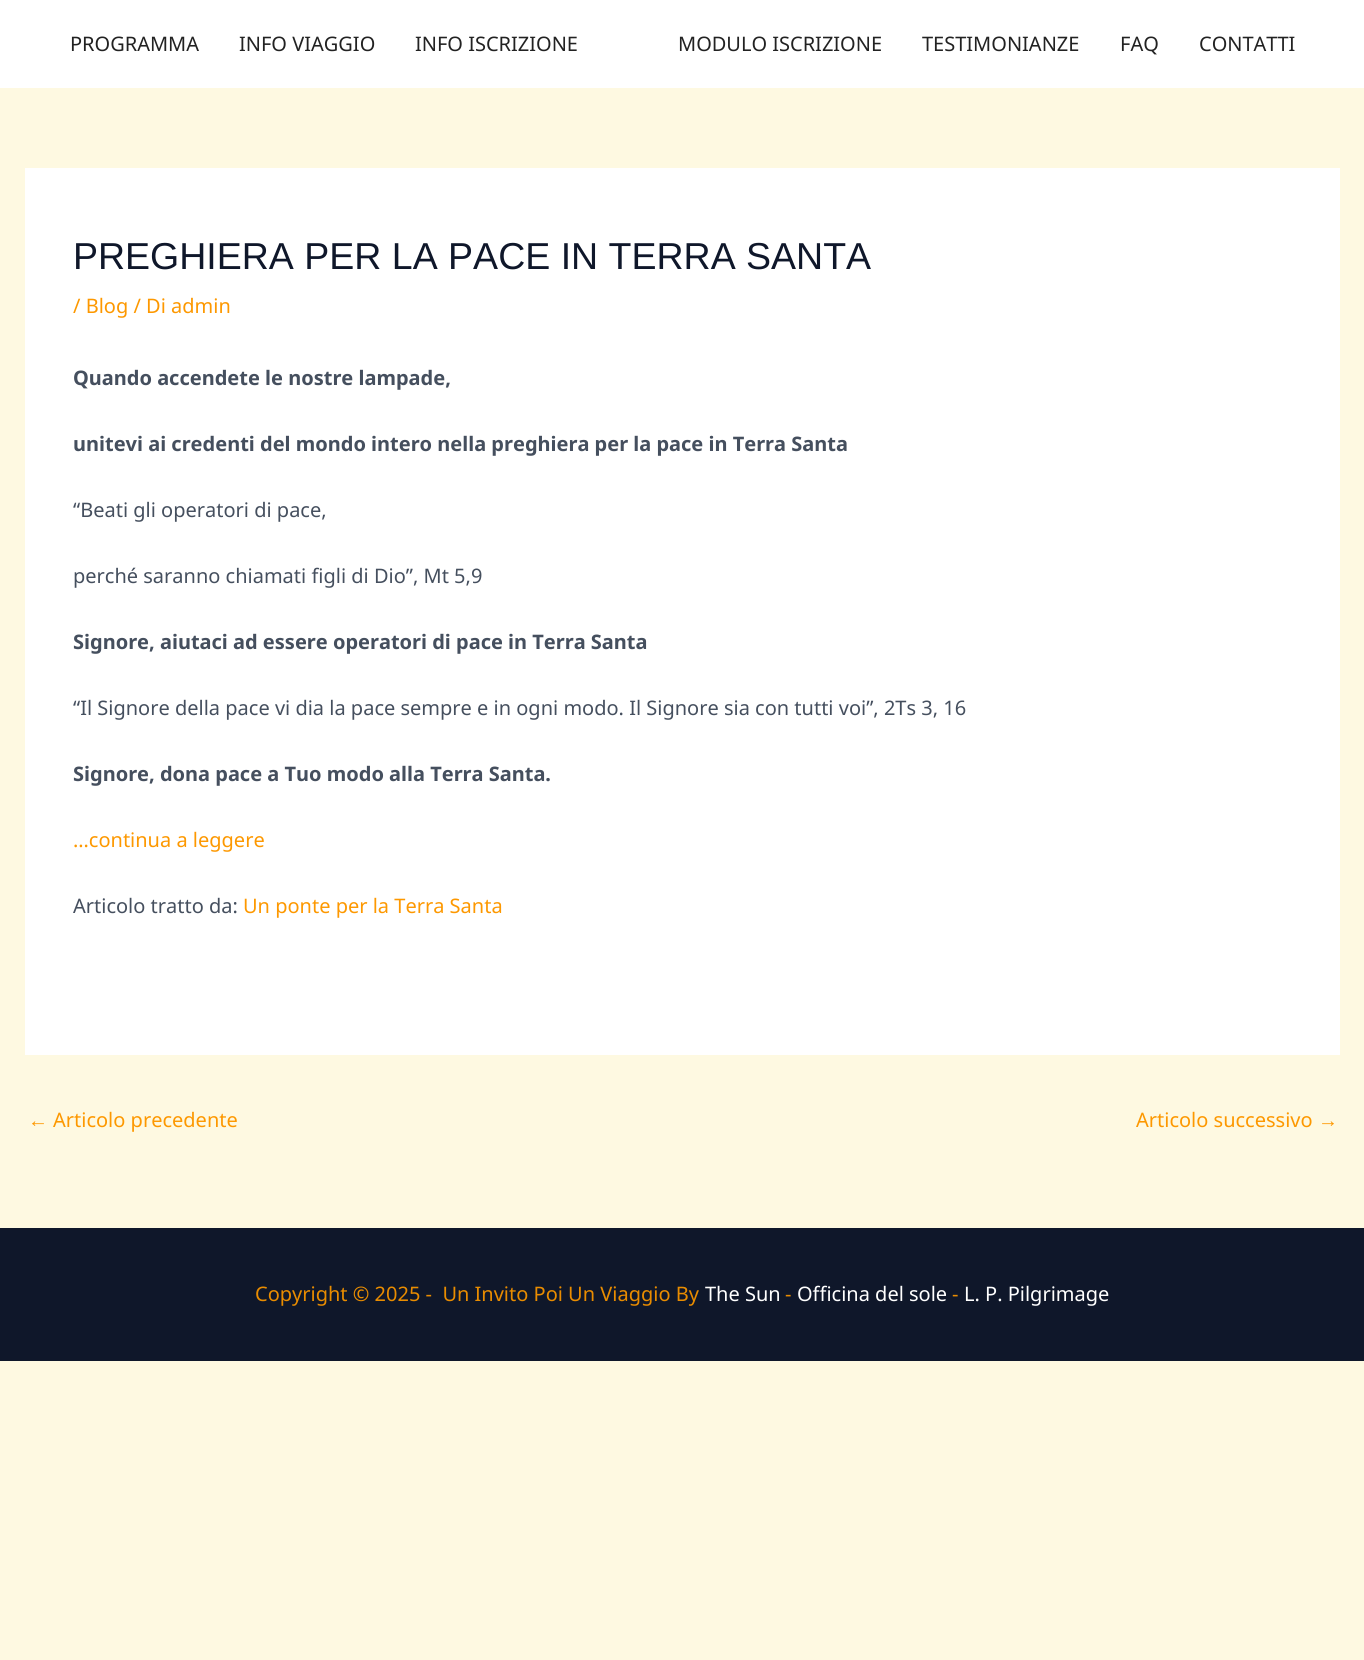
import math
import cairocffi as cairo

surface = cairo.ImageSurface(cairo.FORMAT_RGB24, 1364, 1660)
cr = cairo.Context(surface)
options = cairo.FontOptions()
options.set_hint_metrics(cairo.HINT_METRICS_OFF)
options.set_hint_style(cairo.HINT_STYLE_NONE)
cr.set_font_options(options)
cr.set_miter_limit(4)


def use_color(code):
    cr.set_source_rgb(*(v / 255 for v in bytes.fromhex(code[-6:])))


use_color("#fef9e1")
cr.paint()
use_color("#ffffff")
cr.rectangle(0, 0, 1364, 88)
cr.fill()
cr.select_font_face("Noto Sans")
cr.set_font_size(20)
use_color("#222222")
cr.move_to(70, 51)
cr.show_text("PROGRAMMA")
cr.move_to(239, 51)
cr.show_text("INFO VIAGGIO")
cr.move_to(415, 51)
cr.show_text("INFO ISCRIZIONE")
cr.move_to(678, 51)
cr.show_text("MODULO ISCRIZIONE")
cr.move_to(922, 51)
cr.show_text("TESTIMONIANZE")
cr.move_to(1120, 51)
cr.show_text("FAQ")
cr.move_to(1199, 51)
cr.show_text("CONTATTI")
use_color("#ffffff")
cr.rectangle(25, 168, 1315, 887)
cr.fill()
cr.select_font_face("Liberation Sans")
cr.set_font_size(37.5)
use_color("#0f172a")
cr.move_to(73, 269)
cr.show_text("PREGHIERA PER LA PACE IN TERRA SANTA")
cr.select_font_face("Noto Sans")
cr.set_font_size(20)
use_color("#fd9800")
cr.move_to(73, 313)
cr.show_text("/ Blog / Di admin")
cr.select_font_face("Noto Sans", cairo.FONT_SLANT_NORMAL, cairo.FONT_WEIGHT_BOLD)
use_color("#454f5e")
cr.move_to(73, 385)
cr.show_text("Quando accendete le nostre lampade,")
cr.move_to(73, 451)
cr.show_text("unitevi ai credenti del mondo intero nella preghiera per la pace in Terra Santa")
cr.select_font_face("Noto Sans")
cr.move_to(73, 517)
cr.show_text("“Beati gli operatori di pace,")
cr.move_to(73, 583)
cr.show_text("perché saranno chiamati figli di Dio”, Mt 5,9")
cr.select_font_face("Noto Sans", cairo.FONT_SLANT_NORMAL, cairo.FONT_WEIGHT_BOLD)
cr.move_to(73, 649)
cr.show_text("Signore, aiutaci ad essere operatori di pace in Terra Santa")
cr.select_font_face("Noto Sans")
cr.move_to(73, 715)
cr.show_text("“Il Signore della pace vi dia la pace sempre e in ogni modo. Il Signore sia con tutti voi”, 2Ts 3, 16")
cr.select_font_face("Noto Sans", cairo.FONT_SLANT_NORMAL, cairo.FONT_WEIGHT_BOLD)
cr.move_to(73, 781)
cr.show_text("Signore, dona pace a Tuo modo alla Terra Santa.")
cr.select_font_face("Noto Sans")
use_color("#fd9800")
cr.move_to(73, 847)
cr.show_text("…continua a leggere")
use_color("#454f5e")
cr.move_to(73, 913)
cr.show_text("Articolo tratto da:")
use_color("#fd9800")
cr.move_to(243, 913)
cr.show_text("Un ponte per la Terra Santa")
cr.select_font_face("Liberation Sans")
cr.move_to(28, 1127)
cr.show_text("←")
cr.select_font_face("Noto Sans")
cr.move_to(53, 1127)
cr.show_text("Articolo precedente")
cr.move_to(1136, 1127)
cr.show_text("Articolo successivo")
cr.select_font_face("Liberation Sans")
cr.move_to(1318, 1127)
cr.show_text("→")
use_color("#0f172a")
cr.rectangle(0, 1228, 1364, 133)
cr.fill()
cr.select_font_face("Noto Sans")
use_color("#e98c00")
cr.move_to(255, 1301)
cr.show_text("Copyright © 2025 -  Un Invito Poi Un Viaggio By")
use_color("#ffffff")
cr.move_to(705, 1301)
cr.show_text("The Sun")
use_color("#e98c00")
cr.move_to(785, 1301)
cr.show_text("-")
use_color("#ffffff")
cr.move_to(797, 1301)
cr.show_text("Officina del sole")
use_color("#e98c00")
cr.move_to(952, 1301)
cr.show_text("-")
use_color("#ffffff")
cr.move_to(964, 1301)
cr.show_text("L. P. Pilgrimage")
surface.write_to_png("result.png")
